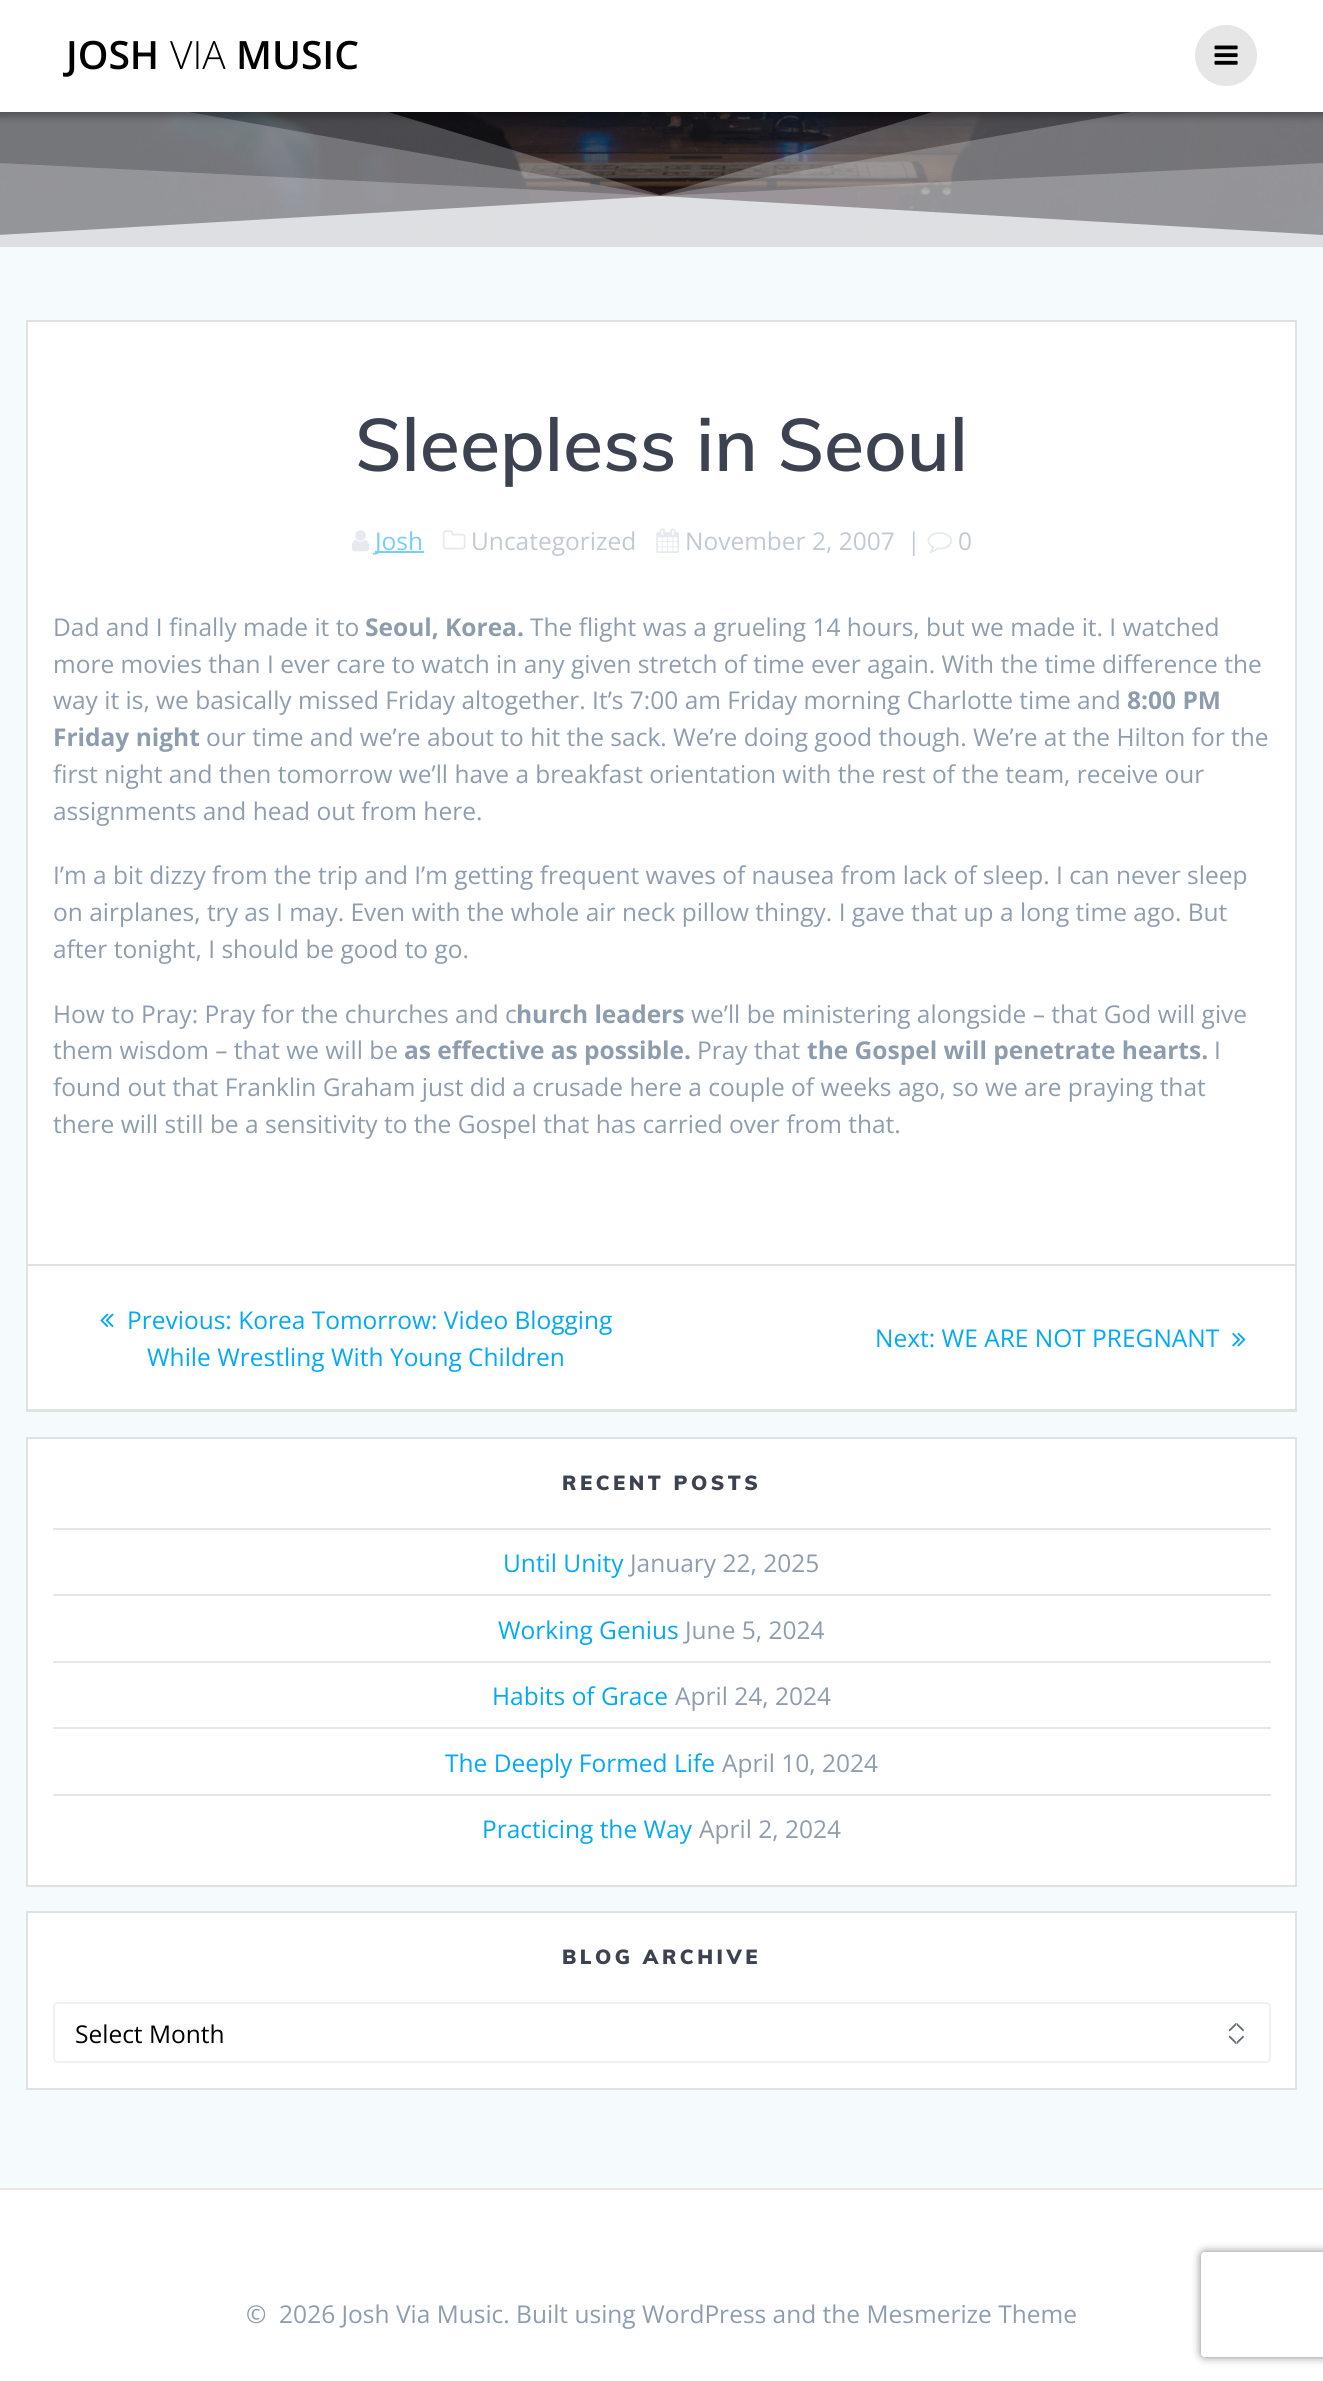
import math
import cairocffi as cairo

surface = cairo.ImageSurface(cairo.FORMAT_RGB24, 1323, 2381)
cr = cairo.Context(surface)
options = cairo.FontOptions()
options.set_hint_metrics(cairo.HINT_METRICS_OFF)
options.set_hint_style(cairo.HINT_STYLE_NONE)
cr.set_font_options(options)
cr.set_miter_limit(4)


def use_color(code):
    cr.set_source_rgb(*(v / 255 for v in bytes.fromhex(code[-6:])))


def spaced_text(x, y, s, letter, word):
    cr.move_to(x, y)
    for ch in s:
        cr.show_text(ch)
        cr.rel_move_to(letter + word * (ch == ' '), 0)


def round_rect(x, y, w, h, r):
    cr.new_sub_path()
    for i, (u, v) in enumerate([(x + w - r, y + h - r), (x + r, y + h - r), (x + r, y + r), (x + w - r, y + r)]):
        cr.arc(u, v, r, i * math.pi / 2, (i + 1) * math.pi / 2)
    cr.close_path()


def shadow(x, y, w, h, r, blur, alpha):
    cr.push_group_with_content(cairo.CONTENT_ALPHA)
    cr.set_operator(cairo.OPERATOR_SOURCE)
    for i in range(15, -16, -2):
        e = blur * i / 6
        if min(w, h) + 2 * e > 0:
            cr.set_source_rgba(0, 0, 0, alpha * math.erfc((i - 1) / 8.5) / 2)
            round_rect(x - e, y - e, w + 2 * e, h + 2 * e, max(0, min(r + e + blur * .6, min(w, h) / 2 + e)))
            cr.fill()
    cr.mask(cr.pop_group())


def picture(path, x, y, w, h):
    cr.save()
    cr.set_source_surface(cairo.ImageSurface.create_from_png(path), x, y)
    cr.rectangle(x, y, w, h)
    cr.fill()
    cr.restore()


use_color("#ffffff")
cr.paint()
use_color("#151518")
cr.rectangle(0, 246, 1323, 1)
cr.fill()
picture("img2.png", 0, 112, 1323, 135)
cr.set_source_rgba(0.933, 0.945, 0.953, 0.26)
cr.new_path()
cr.move_to(1323, 251)
cr.line_to(1323, -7)
cr.line_to(660, 195)
cr.line_to(-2, -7)
cr.line_to(-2, 251)
cr.close_path()
cr.fill()
cr.new_path()
cr.move_to(1323, 251)
cr.line_to(1323, 78)
cr.line_to(660, 196)
cr.line_to(-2, 78)
cr.line_to(-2, 251)
cr.close_path()
cr.fill()
use_color("#000000")
shadow(-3, -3, 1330, 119, 0, 4.5, 0.33)
use_color("#ffffff")
cr.rectangle(0, 0, 1323, 112)
cr.fill()
cr.select_font_face("Open Sans SemiBold")
cr.set_font_size(39)
use_color("#000000")
cr.move_to(66, 69)
cr.show_text("JOSH")
cr.select_font_face("Open Sans Light")
cr.move_to(170, 69)
cr.show_text("VIA")
cr.select_font_face("Open Sans SemiBold")
cr.move_to(236, 69)
cr.show_text("MUSIC")
use_color("#e6e6e6")
round_rect(1195, 25, 62, 61, 30.5)
cr.fill()
picture("img1.png", 1214, 45, 24, 20)
cr.set_source_rgba(0.933, 0.945, 0.953, 0.26)
cr.new_path()
cr.move_to(1323, 251)
cr.line_to(1323, 163)
cr.line_to(660, 196)
cr.line_to(-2, 163)
cr.line_to(-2, 251)
cr.close_path()
cr.fill()
cr.set_source_rgba(0.933, 0.945, 0.953, 0.8)
cr.new_path()
cr.move_to(1323, 251)
cr.line_to(1323, 235)
cr.line_to(660, 196)
cr.line_to(-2, 235)
cr.line_to(-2, 251)
cr.close_path()
cr.fill()
use_color("#f5fafd")
cr.rectangle(0, 247, 1323, 1941)
cr.fill()
use_color("#ffffff")
cr.rectangle(28, 322, 1267, 942)
cr.fill()
cr.rectangle(27, 321, 1269, 1090)
use_color("#e0e1e1")
cr.stroke()
cr.select_font_face("Muli SemiBold")
cr.set_font_size(73.5)
use_color("#3c424f")
cr.move_to(355, 471)
cr.show_text("Sleepless in Seoul")
picture("img3.png", 351, 530, 19, 22)
use_color("#74d0f9")
cr.rectangle(375, 551, 49, 2)
cr.fill()
cr.select_font_face("Open Sans")
cr.set_font_size(24.5)
cr.move_to(375, 550)
cr.show_text("Josh")
picture("img4.png", 442, 530, 24, 20)
use_color("#c1c9d2")
cr.move_to(471, 550)
cr.show_text("Uncategorized")
picture("img5.png", 656, 528, 23, 25)
cr.move_to(685, 550)
cr.show_text("November 2, 2007")
cr.move_to(907, 550)
cr.show_text("|")
picture("img6.png", 927, 532, 25, 21)
cr.move_to(958, 550)
cr.show_text("0")
use_color("#8e9dae")
cr.move_to(53, 636)
cr.show_text("Dad and I finally made it to")
cr.select_font_face("Open Sans", cairo.FONT_SLANT_NORMAL, cairo.FONT_WEIGHT_BOLD)
cr.move_to(365, 636)
cr.show_text("Seoul, Korea.")
cr.select_font_face("Open Sans")
cr.move_to(530, 636)
cr.show_text("The flight was a grueling 14 hours, but we made it. I watched")
cr.move_to(53, 673)
cr.show_text("more movies than I ever care to watch in any given stretch of time ever again. With the time difference the")
cr.move_to(53, 709)
cr.show_text("way it is, we basically missed Friday altogether. It’s 7:00 am Friday morning Charlotte time and")
cr.select_font_face("Open Sans", cairo.FONT_SLANT_NORMAL, cairo.FONT_WEIGHT_BOLD)
cr.move_to(1127, 709)
cr.show_text("8:00 PM")
cr.move_to(53, 746)
cr.show_text("Friday night")
cr.select_font_face("Open Sans")
cr.move_to(206, 746)
cr.show_text("our time and we’re about to hit the sack. We’re doing good though. We’re at the Hilton for the")
cr.move_to(53, 783)
cr.show_text("first night and then tomorrow we’ll have a breakfast orientation with the rest of the team, receive our")
cr.move_to(53, 820)
cr.show_text("assignments and head out from here.")
cr.move_to(53, 884)
cr.show_text("I’m a bit dizzy from the trip and I’m getting frequent waves of nausea from lack of sleep. I can never sleep")
cr.move_to(53, 921)
cr.show_text("on airplanes, try as I may. Even with the whole air neck pillow thingy. I gave that up a long time ago. But")
cr.move_to(53, 958)
cr.show_text("after tonight, I should be good to go.")
cr.move_to(53, 1023)
cr.show_text("How to Pray: Pray for the churches and c")
cr.select_font_face("Open Sans", cairo.FONT_SLANT_NORMAL, cairo.FONT_WEIGHT_BOLD)
cr.move_to(516, 1023)
cr.show_text("hurch leaders")
cr.select_font_face("Open Sans")
cr.move_to(691, 1023)
cr.show_text("we’ll be ministering alongside – that God will give")
cr.move_to(53, 1059)
cr.show_text("them wisdom – that we will be")
cr.select_font_face("Open Sans", cairo.FONT_SLANT_NORMAL, cairo.FONT_WEIGHT_BOLD)
cr.move_to(404, 1059)
cr.show_text("as effective as possible.")
cr.select_font_face("Open Sans")
cr.move_to(697, 1059)
cr.show_text("Pray that")
cr.select_font_face("Open Sans", cairo.FONT_SLANT_NORMAL, cairo.FONT_WEIGHT_BOLD)
cr.move_to(807, 1059)
cr.show_text("the Gospel will penetrate hearts.")
cr.select_font_face("Open Sans")
cr.move_to(1214, 1059)
cr.show_text("I")
cr.move_to(53, 1096)
cr.show_text("found out that Franklin Graham just did a crusade here a couple of weeks ago, so we are praying that")
cr.move_to(53, 1133)
cr.show_text("there will still be a sensitivity to the Gospel that has carried over from that.")
use_color("#ffffff")
cr.rectangle(28, 1266, 1267, 143)
cr.fill()
use_color("#e0e1e1")
cr.rectangle(28, 1264, 1267, 2)
cr.fill()
cr.rectangle(28, 1409, 1267, 1)
cr.fill()
picture("img7.png", 100, 1313, 14, 15)
use_color("#03a9f4")
cr.move_to(127, 1329)
cr.show_text("Previous: Korea Tomorrow: Video Blogging")
cr.move_to(147, 1366)
cr.show_text("While Wrestling With Young Children")
cr.move_to(875, 1347)
cr.show_text("Next: WE ARE NOT PREGNANT")
picture("img8.png", 1232, 1332, 14, 15)
use_color("#ffffff")
cr.rectangle(27, 1438, 1269, 448)
cr.fill_preserve()
use_color("#e0e1e1")
cr.stroke()
cr.select_font_face("Muli Black")
cr.set_font_size(20.25)
use_color("#3c424f")
spaced_text(562, 1490, "RECENT POSTS", 3.5, 0)
use_color("#e6e6e6")
cr.rectangle(53, 1528, 1218, 2)
cr.fill()
cr.select_font_face("Open Sans")
cr.set_font_size(24.5)
use_color("#03a9f4")
cr.move_to(503, 1572)
cr.show_text("Until Unity")
use_color("#8e9dae")
cr.move_to(630, 1572)
cr.show_text("January 22, 2025")
use_color("#e6e6e6")
cr.rectangle(53, 1594, 1218, 2)
cr.fill()
use_color("#03a9f4")
cr.move_to(498, 1639)
cr.show_text("Working Genius")
use_color("#8e9dae")
cr.move_to(685, 1639)
cr.show_text("June 5, 2024")
use_color("#e6e6e6")
cr.rectangle(53, 1661, 1218, 2)
cr.fill()
use_color("#03a9f4")
cr.move_to(492, 1705)
cr.show_text("Habits of Grace")
use_color("#8e9dae")
cr.move_to(675, 1705)
cr.show_text("April 24, 2024")
use_color("#e6e6e6")
cr.rectangle(53, 1727, 1218, 2)
cr.fill()
use_color("#03a9f4")
cr.move_to(445, 1772)
cr.show_text("The Deeply Formed Life")
use_color("#8e9dae")
cr.move_to(722, 1772)
cr.show_text("April 10, 2024")
use_color("#e6e6e6")
cr.rectangle(53, 1794, 1218, 2)
cr.fill()
use_color("#03a9f4")
cr.move_to(482, 1838)
cr.show_text("Practicing the Way")
use_color("#8e9dae")
cr.move_to(699, 1838)
cr.show_text("April 2, 2024")
use_color("#ffffff")
cr.rectangle(27, 1912, 1269, 177)
cr.fill_preserve()
use_color("#e0e1e1")
cr.stroke()
cr.select_font_face("Muli Black")
cr.set_font_size(20.25)
use_color("#3c424f")
spaced_text(562, 1964, "BLOG ARCHIVE", 3.5, 0)
picture("img9.png", 1229, 2023, 15, 21)
round_rect(54, 2003, 1216, 59, 4)
use_color("#f1f1f1")
cr.stroke()
cr.select_font_face("Open Sans")
cr.set_font_size(24.5)
use_color("#000000")
cr.move_to(75, 2043)
cr.show_text("Select Month")
use_color("#e8e8e8")
cr.rectangle(0, 2188, 1323, 2)
cr.fill()
use_color("#8e9dae")
cr.move_to(246, 2323)
cr.show_text("©  2026 Josh Via Music. Built using WordPress and the Mesmerize Theme")
cr.save()
cr.set_fill_rule(cairo.FILL_RULE_EVEN_ODD)
cr.new_path()
cr.move_to(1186, 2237)
cr.line_to(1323, 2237)
cr.line_to(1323, 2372)
cr.line_to(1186, 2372)
cr.close_path()
cr.move_to(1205, 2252)
cr.line_to(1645, 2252)
cr.curve_to(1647, 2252, 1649, 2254, 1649, 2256)
cr.line_to(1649, 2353)
cr.curve_to(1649, 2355, 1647, 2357, 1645, 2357)
cr.line_to(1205, 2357)
cr.curve_to(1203, 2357, 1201, 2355, 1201, 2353)
cr.line_to(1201, 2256)
cr.curve_to(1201, 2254, 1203, 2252, 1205, 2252)
cr.close_path()
cr.clip()
use_color("#808080")
shadow(1201, 2252, 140, 105, 4, 4.5, 1)
cr.restore()
surface.write_to_png("result.png")
